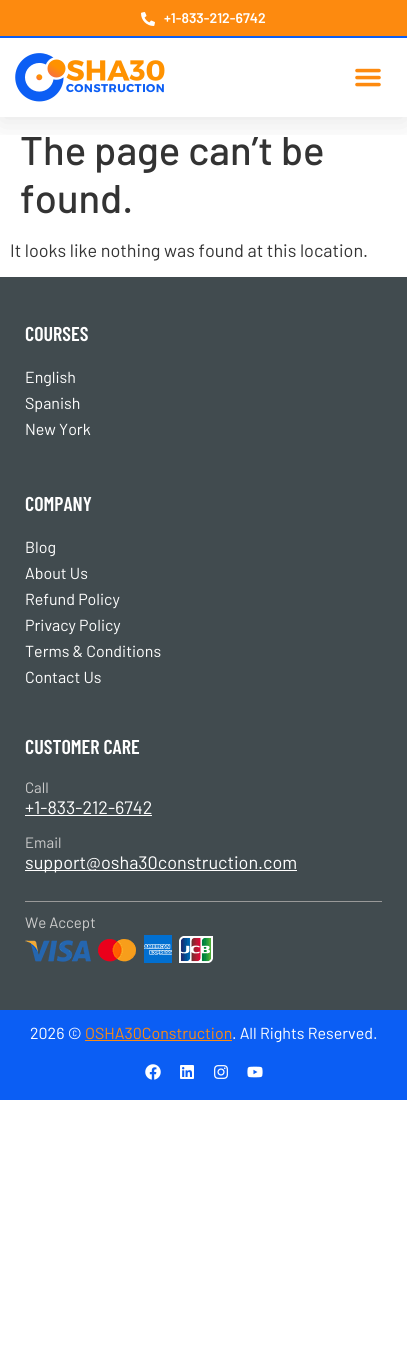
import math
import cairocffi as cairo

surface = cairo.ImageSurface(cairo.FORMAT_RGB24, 407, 1364)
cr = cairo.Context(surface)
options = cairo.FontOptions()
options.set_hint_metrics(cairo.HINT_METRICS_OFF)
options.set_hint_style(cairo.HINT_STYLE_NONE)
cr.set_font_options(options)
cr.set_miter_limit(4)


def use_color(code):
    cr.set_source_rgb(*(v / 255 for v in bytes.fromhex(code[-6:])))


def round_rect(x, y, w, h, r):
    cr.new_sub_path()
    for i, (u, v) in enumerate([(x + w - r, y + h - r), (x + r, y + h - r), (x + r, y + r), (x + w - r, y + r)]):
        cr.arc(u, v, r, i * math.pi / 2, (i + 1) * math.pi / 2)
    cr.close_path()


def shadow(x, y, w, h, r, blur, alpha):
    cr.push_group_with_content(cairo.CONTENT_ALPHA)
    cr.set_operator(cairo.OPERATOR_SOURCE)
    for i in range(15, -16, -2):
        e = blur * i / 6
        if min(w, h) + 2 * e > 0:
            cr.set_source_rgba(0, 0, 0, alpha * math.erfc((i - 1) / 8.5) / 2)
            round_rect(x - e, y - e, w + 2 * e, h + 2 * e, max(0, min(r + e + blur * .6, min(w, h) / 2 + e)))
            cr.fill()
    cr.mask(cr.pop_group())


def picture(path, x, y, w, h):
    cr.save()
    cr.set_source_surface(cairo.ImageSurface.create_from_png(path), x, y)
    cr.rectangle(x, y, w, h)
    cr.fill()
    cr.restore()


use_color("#ffffff")
cr.paint()
cr.save()
cr.rectangle(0, 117, 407, 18)
cr.clip()
use_color("#000000")
shadow(0, 5, 407, 117, 0, 15, 0.1)
cr.restore()
use_color("#fd8a0f")
cr.rectangle(0, 0, 407, 36)
cr.fill()
picture("img1.png", 141, 12, 14, 14)
cr.select_font_face("Barlow SemiBold")
cr.set_font_size(14)
use_color("#ffffff")
cr.move_to(164, 23)
cr.show_text("+1-833-212-6742")
use_color("#0b5ef4")
cr.rectangle(0, 36, 407, 2)
cr.fill()
picture("img2.png", 15, 53, 150, 49)
picture("img3.png", 355, 68, 26, 19)
cr.select_font_face("Barlow Medium")
cr.set_font_size(40)
use_color("#333333")
cr.move_to(20, 165)
cr.show_text("The page can’t be")
cr.move_to(20, 213)
cr.show_text("found.")
cr.select_font_face("Barlow")
cr.set_font_size(18)
cr.move_to(10, 257)
cr.show_text("It looks like nothing was found at this location.")
use_color("#414b4f")
cr.rectangle(0, 277, 407, 733)
cr.fill()
cr.select_font_face("Barlow Condensed SemiBold")
cr.set_font_size(20)
use_color("#ffffff")
cr.move_to(25, 341)
cr.show_text("COURSES")
cr.select_font_face("Barlow")
cr.set_font_size(16)
cr.move_to(25, 383)
cr.show_text("English")
cr.move_to(25, 409)
cr.show_text("Spanish")
cr.move_to(25, 435)
cr.show_text("New York")
cr.select_font_face("Barlow Condensed SemiBold")
cr.set_font_size(20)
cr.move_to(25, 511)
cr.show_text("COMPANY")
cr.select_font_face("Barlow")
cr.set_font_size(16)
cr.move_to(25, 553)
cr.show_text("Blog")
cr.move_to(25, 579)
cr.show_text("About Us")
cr.move_to(25, 605)
cr.show_text("Refund Policy")
cr.move_to(25, 631)
cr.show_text("Privacy Policy")
cr.move_to(25, 657)
cr.show_text("Terms & Conditions")
cr.move_to(25, 683)
cr.show_text("Contact Us")
cr.select_font_face("Barlow Condensed SemiBold")
cr.set_font_size(20)
cr.move_to(25, 754)
cr.show_text("CUSTOMER CARE")
cr.select_font_face("Barlow")
cr.set_font_size(15)
use_color("#cccccc")
cr.move_to(25, 793)
cr.show_text("Call")
cr.set_font_size(18)
use_color("#ffffff")
cr.move_to(25, 814)
cr.show_text("+1-833-212-6742")
cr.rectangle(25, 815, 127, 1)
cr.fill()
cr.set_font_size(15)
use_color("#cccccc")
cr.move_to(25, 848)
cr.show_text("Email")
use_color("#ffffff")
cr.rectangle(25, 870, 272, 1)
cr.fill()
cr.set_font_size(18)
cr.move_to(25, 869)
cr.show_text("support@osha30construction.com")
use_color("#999999")
cr.rectangle(25, 901, 357, 1)
cr.fill()
cr.set_font_size(15)
use_color("#cccccc")
cr.move_to(25, 928)
cr.show_text("We Accept")
picture("img4.png", 25, 935, 188, 28)
use_color("#0b5ef4")
cr.rectangle(0, 1010, 407, 90)
cr.fill()
cr.set_font_size(16)
use_color("#ffffff")
cr.move_to(30, 1039)
cr.show_text("2026 ©")
use_color("#fd8a0f")
cr.move_to(85, 1039)
cr.show_text("OSHA30Construction")
cr.rectangle(85, 1040, 147, 1)
cr.fill()
use_color("#ffffff")
cr.move_to(232, 1039)
cr.show_text(". All Rights Reserved.")
picture("img5.png", 145, 1064, 16, 16)
picture("img6.png", 180, 1065, 14, 14)
picture("img7.png", 214, 1065, 14, 14)
picture("img8.png", 247, 1066, 16, 12)
surface.write_to_png("result.png")
